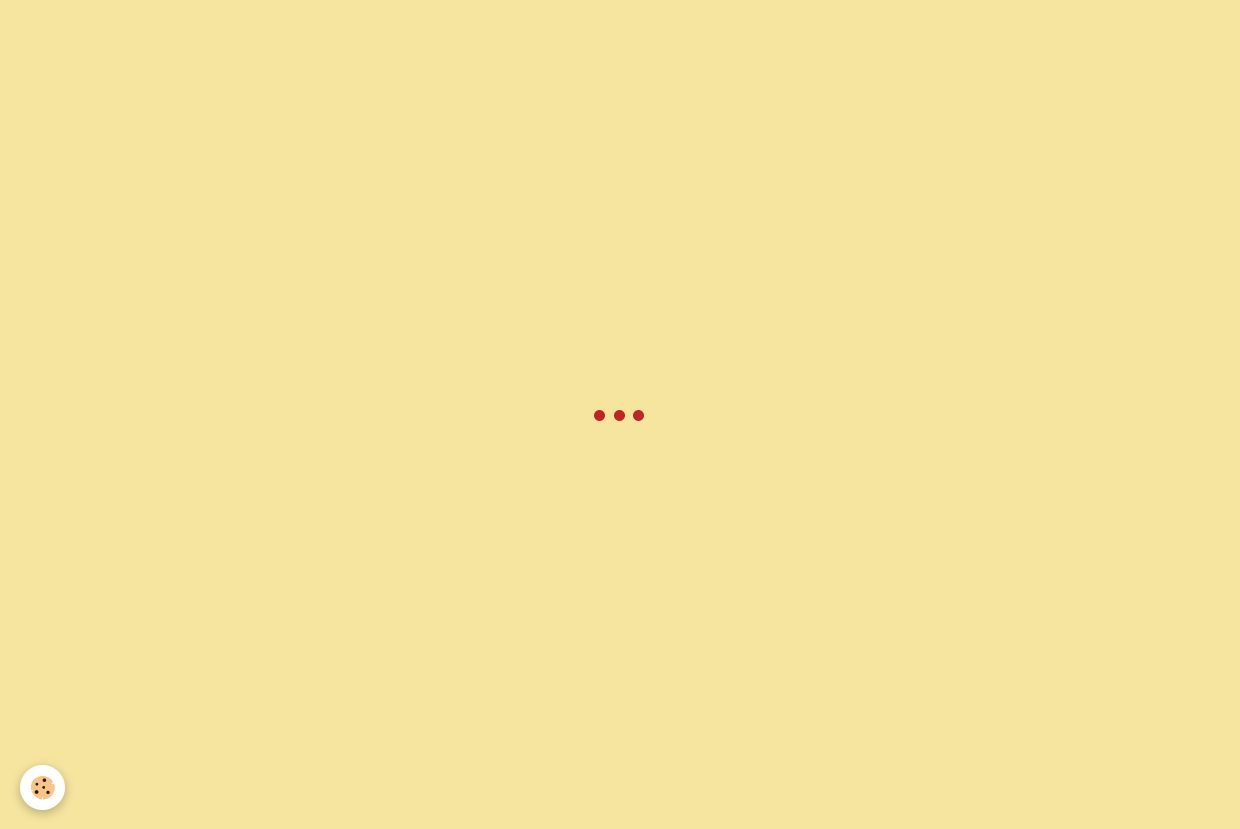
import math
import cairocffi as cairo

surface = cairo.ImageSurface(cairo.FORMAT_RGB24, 1240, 829)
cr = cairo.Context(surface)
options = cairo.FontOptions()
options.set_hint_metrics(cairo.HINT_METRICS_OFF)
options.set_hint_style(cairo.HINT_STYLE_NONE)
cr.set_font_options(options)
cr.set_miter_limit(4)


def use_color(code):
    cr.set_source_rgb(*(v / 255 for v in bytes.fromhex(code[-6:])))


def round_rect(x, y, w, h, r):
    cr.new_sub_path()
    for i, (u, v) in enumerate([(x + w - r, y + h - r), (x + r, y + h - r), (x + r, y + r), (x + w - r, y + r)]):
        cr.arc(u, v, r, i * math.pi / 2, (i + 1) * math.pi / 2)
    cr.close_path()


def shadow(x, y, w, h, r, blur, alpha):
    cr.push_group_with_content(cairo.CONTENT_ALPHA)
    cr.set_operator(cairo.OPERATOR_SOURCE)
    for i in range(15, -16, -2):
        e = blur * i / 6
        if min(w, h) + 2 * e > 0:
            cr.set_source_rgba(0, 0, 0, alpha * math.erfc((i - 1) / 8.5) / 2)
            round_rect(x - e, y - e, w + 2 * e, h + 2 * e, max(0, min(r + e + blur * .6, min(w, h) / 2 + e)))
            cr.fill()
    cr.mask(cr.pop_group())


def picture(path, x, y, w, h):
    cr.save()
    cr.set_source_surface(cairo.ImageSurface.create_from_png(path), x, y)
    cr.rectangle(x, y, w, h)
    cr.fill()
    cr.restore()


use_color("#f6e59f")
cr.paint()
use_color("#be2623")
cr.arc(599.5, 415.5, 5.5, 0, 2 * math.pi)
cr.fill()
cr.arc(619.5, 415.5, 5.5, 0, 2 * math.pi)
cr.fill()
cr.arc(638.5, 415.5, 5.5, 0, 2 * math.pi)
cr.fill()
use_color("#000000")
shadow(20, 768, 45, 45, 22.5, 5, 0.24)
use_color("#ffffff")
cr.arc(42.5, 787.5, 22.5, 0, 2 * math.pi)
cr.fill()
picture("img1.png", 30, 775, 25, 25)
surface.write_to_png("result.png")
